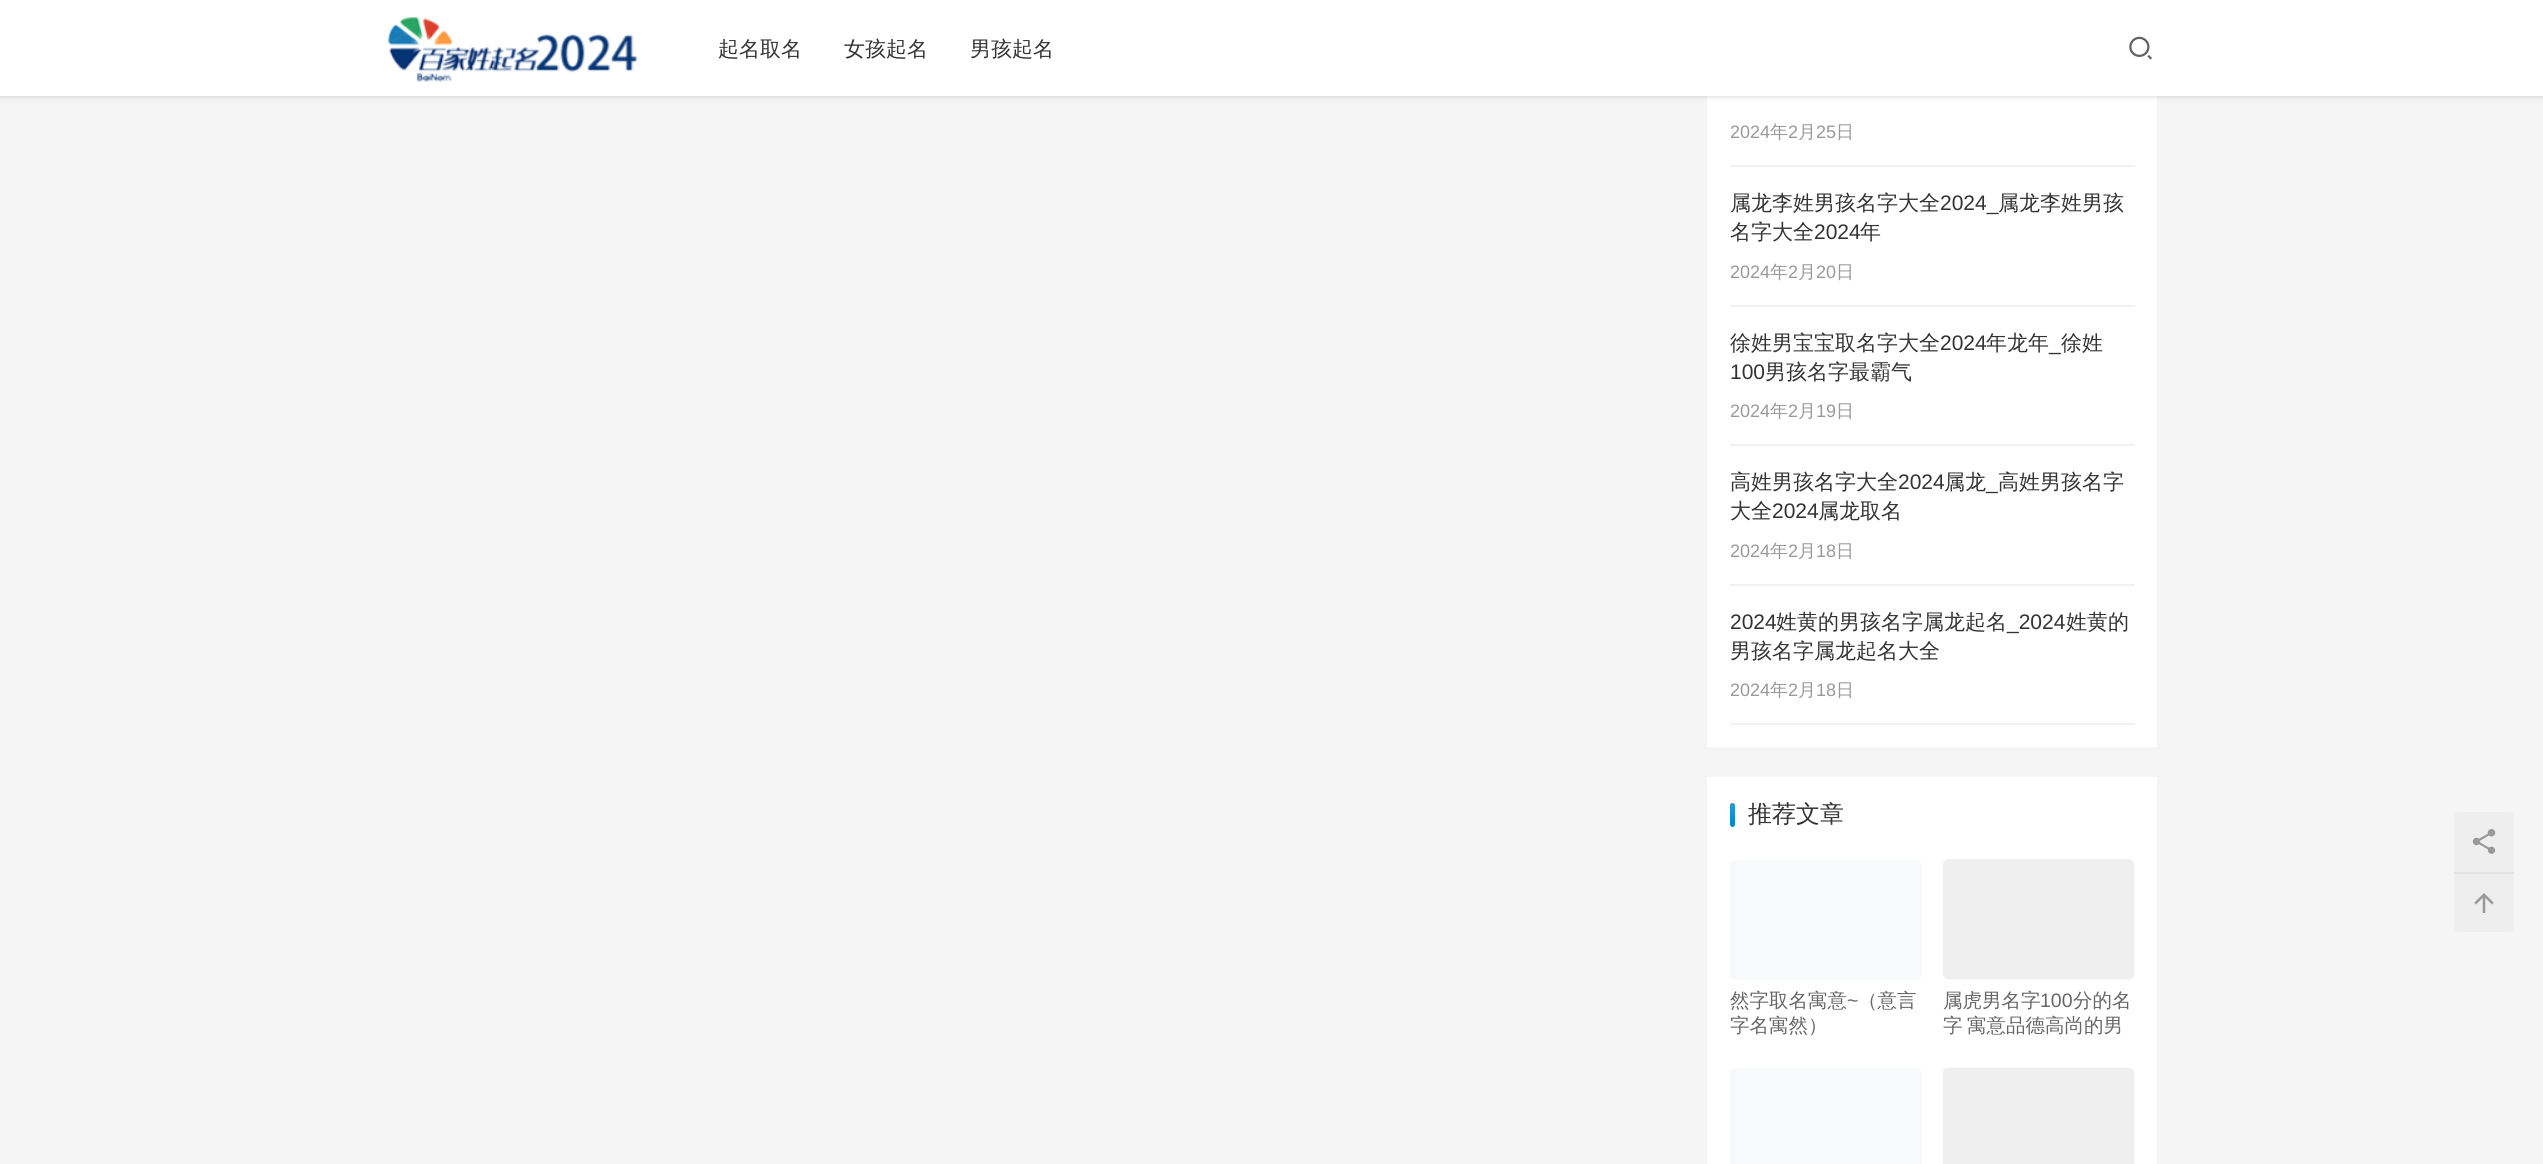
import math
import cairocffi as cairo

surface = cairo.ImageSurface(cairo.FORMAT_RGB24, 2543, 1164)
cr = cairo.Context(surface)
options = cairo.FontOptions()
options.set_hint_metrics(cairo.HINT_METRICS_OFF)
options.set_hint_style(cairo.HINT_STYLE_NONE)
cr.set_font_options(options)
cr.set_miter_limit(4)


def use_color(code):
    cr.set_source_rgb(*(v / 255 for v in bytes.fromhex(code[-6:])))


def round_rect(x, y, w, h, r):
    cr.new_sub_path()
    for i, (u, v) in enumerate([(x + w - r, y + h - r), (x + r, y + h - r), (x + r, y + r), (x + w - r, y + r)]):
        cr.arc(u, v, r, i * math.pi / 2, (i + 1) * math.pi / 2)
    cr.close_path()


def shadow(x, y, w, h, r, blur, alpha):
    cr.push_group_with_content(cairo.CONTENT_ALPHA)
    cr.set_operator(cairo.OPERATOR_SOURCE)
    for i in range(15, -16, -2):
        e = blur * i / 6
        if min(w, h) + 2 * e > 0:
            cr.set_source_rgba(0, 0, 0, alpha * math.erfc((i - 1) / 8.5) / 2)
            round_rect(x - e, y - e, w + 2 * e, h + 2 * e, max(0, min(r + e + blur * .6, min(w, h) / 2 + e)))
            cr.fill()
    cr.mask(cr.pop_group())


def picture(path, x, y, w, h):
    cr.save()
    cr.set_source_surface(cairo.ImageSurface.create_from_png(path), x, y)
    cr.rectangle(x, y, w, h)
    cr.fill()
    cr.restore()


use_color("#f5f5f5")
cr.paint()
use_color("#ffffff")
cr.rectangle(1707, 96, 450, 651)
cr.fill()
use_color("#000000")
shadow(-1, -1, 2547, 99, 0, 2, 0.1)
use_color("#ffffff")
cr.rectangle(0, 0, 2543, 96)
cr.fill()
picture("img1.png", 388, 17, 250, 66)
cr.select_font_face("WenQuanYi Zen Hei Medium")
cr.set_font_size(21)
use_color("#333333")
cr.move_to(718, 56)
cr.show_text("起名取名")
cr.move_to(844, 56)
cr.show_text("女孩起名")
cr.move_to(970, 56)
cr.show_text("男孩起名")
picture("img2.png", 2129, 36, 23, 24)
use_color("#f2f2f2")
cr.rectangle(1730, 165, 405, 2)
cr.fill()
cr.select_font_face("Liberation Sans")
cr.set_font_size(18)
use_color("#999999")
cr.move_to(1730, 138)
cr.show_text("2024")
cr.select_font_face("WenQuanYi Zen Hei Medium")
cr.move_to(1770, 138)
cr.show_text("年")
cr.select_font_face("Liberation Sans")
cr.move_to(1788, 138)
cr.show_text("2")
cr.select_font_face("WenQuanYi Zen Hei Medium")
cr.move_to(1798, 138)
cr.show_text("月")
cr.select_font_face("Liberation Sans")
cr.move_to(1816, 138)
cr.show_text("25")
cr.select_font_face("WenQuanYi Zen Hei Medium")
cr.move_to(1836, 138)
cr.show_text("日")
use_color("#f2f2f2")
cr.rectangle(1730, 305, 405, 2)
cr.fill()
cr.set_font_size(21)
use_color("#333333")
cr.move_to(1730, 210)
cr.show_text("属龙李姓男孩名字大全")
cr.select_font_face("Liberation Sans")
cr.move_to(1940, 210)
cr.show_text("2024_")
cr.select_font_face("WenQuanYi Zen Hei Medium")
cr.move_to(1998, 210)
cr.show_text("属龙李姓男孩")
cr.move_to(1730, 239)
cr.show_text("名字大全")
cr.select_font_face("Liberation Sans")
cr.move_to(1814, 239)
cr.show_text("2024")
cr.select_font_face("WenQuanYi Zen Hei Medium")
cr.move_to(1860, 239)
cr.show_text("年")
cr.select_font_face("Liberation Sans")
cr.set_font_size(18)
use_color("#999999")
cr.move_to(1730, 278)
cr.show_text("2024")
cr.select_font_face("WenQuanYi Zen Hei Medium")
cr.move_to(1770, 278)
cr.show_text("年")
cr.select_font_face("Liberation Sans")
cr.move_to(1788, 278)
cr.show_text("2")
cr.select_font_face("WenQuanYi Zen Hei Medium")
cr.move_to(1798, 278)
cr.show_text("月")
cr.select_font_face("Liberation Sans")
cr.move_to(1816, 278)
cr.show_text("20")
cr.select_font_face("WenQuanYi Zen Hei Medium")
cr.move_to(1836, 278)
cr.show_text("日")
use_color("#f2f2f2")
cr.rectangle(1730, 444, 405, 2)
cr.fill()
cr.set_font_size(21)
use_color("#333333")
cr.move_to(1730, 350)
cr.show_text("徐姓男宝宝取名字大全")
cr.select_font_face("Liberation Sans")
cr.move_to(1940, 350)
cr.show_text("2024")
cr.select_font_face("WenQuanYi Zen Hei Medium")
cr.move_to(1986, 350)
cr.show_text("年龙年")
cr.select_font_face("Liberation Sans")
cr.move_to(2049, 350)
cr.show_text("_")
cr.select_font_face("WenQuanYi Zen Hei Medium")
cr.move_to(2061, 350)
cr.show_text("徐姓")
cr.select_font_face("Liberation Sans")
cr.move_to(1730, 379)
cr.show_text("100")
cr.select_font_face("WenQuanYi Zen Hei Medium")
cr.move_to(1765, 379)
cr.show_text("男孩名字最霸气")
cr.select_font_face("Liberation Sans")
cr.set_font_size(18)
use_color("#999999")
cr.move_to(1730, 417)
cr.show_text("2024")
cr.select_font_face("WenQuanYi Zen Hei Medium")
cr.move_to(1770, 417)
cr.show_text("年")
cr.select_font_face("Liberation Sans")
cr.move_to(1788, 417)
cr.show_text("2")
cr.select_font_face("WenQuanYi Zen Hei Medium")
cr.move_to(1798, 417)
cr.show_text("月")
cr.select_font_face("Liberation Sans")
cr.move_to(1816, 417)
cr.show_text("19")
cr.select_font_face("WenQuanYi Zen Hei Medium")
cr.move_to(1836, 417)
cr.show_text("日")
use_color("#f2f2f2")
cr.rectangle(1730, 584, 405, 2)
cr.fill()
cr.set_font_size(21)
use_color("#333333")
cr.move_to(1730, 489)
cr.show_text("高姓男孩名字大全")
cr.select_font_face("Liberation Sans")
cr.move_to(1898, 489)
cr.show_text("2024")
cr.select_font_face("WenQuanYi Zen Hei Medium")
cr.move_to(1944, 489)
cr.show_text("属龙")
cr.select_font_face("Liberation Sans")
cr.move_to(1986, 489)
cr.show_text("_")
cr.select_font_face("WenQuanYi Zen Hei Medium")
cr.move_to(1998, 489)
cr.show_text("高姓男孩名字")
cr.move_to(1730, 518)
cr.show_text("大全")
cr.select_font_face("Liberation Sans")
cr.move_to(1772, 518)
cr.show_text("2024")
cr.select_font_face("WenQuanYi Zen Hei Medium")
cr.move_to(1818, 518)
cr.show_text("属龙取名")
cr.select_font_face("Liberation Sans")
cr.set_font_size(18)
use_color("#999999")
cr.move_to(1730, 557)
cr.show_text("2024")
cr.select_font_face("WenQuanYi Zen Hei Medium")
cr.move_to(1770, 557)
cr.show_text("年")
cr.select_font_face("Liberation Sans")
cr.move_to(1788, 557)
cr.show_text("2")
cr.select_font_face("WenQuanYi Zen Hei Medium")
cr.move_to(1798, 557)
cr.show_text("月")
cr.select_font_face("Liberation Sans")
cr.move_to(1816, 557)
cr.show_text("18")
cr.select_font_face("WenQuanYi Zen Hei Medium")
cr.move_to(1836, 557)
cr.show_text("日")
use_color("#f2f2f2")
cr.rectangle(1730, 723, 405, 2)
cr.fill()
cr.select_font_face("Liberation Sans")
cr.set_font_size(21)
use_color("#333333")
cr.move_to(1730, 629)
cr.show_text("2024")
cr.select_font_face("WenQuanYi Zen Hei Medium")
cr.move_to(1776, 629)
cr.show_text("姓黄的男孩名字属龙起名")
cr.select_font_face("Liberation Sans")
cr.move_to(2007, 629)
cr.show_text("_2024")
cr.select_font_face("WenQuanYi Zen Hei Medium")
cr.move_to(2066, 629)
cr.show_text("姓黄的")
cr.move_to(1730, 658)
cr.show_text("男孩名字属龙起名大全")
cr.select_font_face("Liberation Sans")
cr.set_font_size(18)
use_color("#999999")
cr.move_to(1730, 696)
cr.show_text("2024")
cr.select_font_face("WenQuanYi Zen Hei Medium")
cr.move_to(1770, 696)
cr.show_text("年")
cr.select_font_face("Liberation Sans")
cr.move_to(1788, 696)
cr.show_text("2")
cr.select_font_face("WenQuanYi Zen Hei Medium")
cr.move_to(1798, 696)
cr.show_text("月")
cr.select_font_face("Liberation Sans")
cr.move_to(1816, 696)
cr.show_text("18")
cr.select_font_face("WenQuanYi Zen Hei Medium")
cr.move_to(1836, 696)
cr.show_text("日")
use_color("#ffffff")
cr.rectangle(1707, 777, 450, 387)
cr.fill()
use_color("#0088cc")
round_rect(1730, 803, 5, 24, 2.5)
cr.fill()
gradient = cairo.LinearGradient(1732, 803, 1732, 827)
gradient.add_color_stop_rgba(0, 1, 1, 1, 0.15)
gradient.add_color_stop_rgba(1, 1, 1, 1, 0)
cr.set_source(gradient)
round_rect(1730, 803, 5, 24, 2.5)
cr.fill()
cr.set_font_size(24)
use_color("#333333")
cr.move_to(1748, 822)
cr.show_text("推荐文章")
use_color("#f8f9fa")
round_rect(1730, 860, 192, 120, 6)
cr.fill()
cr.set_font_size(19.5)
use_color("#666666")
cr.move_to(1730, 1007)
cr.show_text("然字取名寓意")
cr.select_font_face("Liberation Sans")
cr.move_to(1847, 1007)
cr.show_text("~")
cr.select_font_face("WenQuanYi Zen Hei Medium")
cr.move_to(1858, 1007)
cr.show_text("（意言")
cr.move_to(1730, 1032)
cr.show_text("字名寓然）")
use_color("#f8f9fa")
round_rect(1943, 860, 192, 120, 6)
cr.fill()
picture("img3.png", 1942, 859, 192, 120)
use_color("#666666")
cr.move_to(1943, 1007)
cr.show_text("属虎男名字")
cr.select_font_face("Liberation Sans")
cr.move_to(2040, 1007)
cr.show_text("100")
cr.select_font_face("WenQuanYi Zen Hei Medium")
cr.move_to(2073, 1007)
cr.show_text("分的名")
cr.move_to(1943, 1032)
cr.show_text("字")
cr.move_to(1967, 1032)
cr.show_text("寓意品德高尚的男")
use_color("#f8f9fa")
round_rect(1730, 1068, 192, 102, 6)
cr.fill()
round_rect(1943, 1068, 192, 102, 6)
cr.fill()
picture("img4.png", 1942, 1067, 192, 97)
use_color("#eeeeee")
cr.new_path()
cr.move_to(2459, 812)
cr.line_to(2509, 812)
cr.curve_to(2512, 812, 2514, 814, 2514, 817)
cr.line_to(2514, 872)
cr.line_to(2454, 872)
cr.line_to(2454, 817)
cr.curve_to(2454, 814, 2456, 812, 2459, 812)
cr.close_path()
cr.fill()
picture("img5.png", 2472, 829, 24, 25)
cr.new_path()
cr.move_to(2454, 872)
cr.line_to(2514, 872)
cr.line_to(2514, 927)
cr.curve_to(2514, 930, 2512, 932, 2509, 932)
cr.line_to(2459, 932)
cr.curve_to(2456, 932, 2454, 930, 2454, 927)
cr.close_path()
cr.fill()
use_color("#e2e2e2")
cr.rectangle(2454, 872, 60, 2)
cr.fill()
picture("img6.png", 2474, 893, 20, 20)
surface.write_to_png("result.png")
